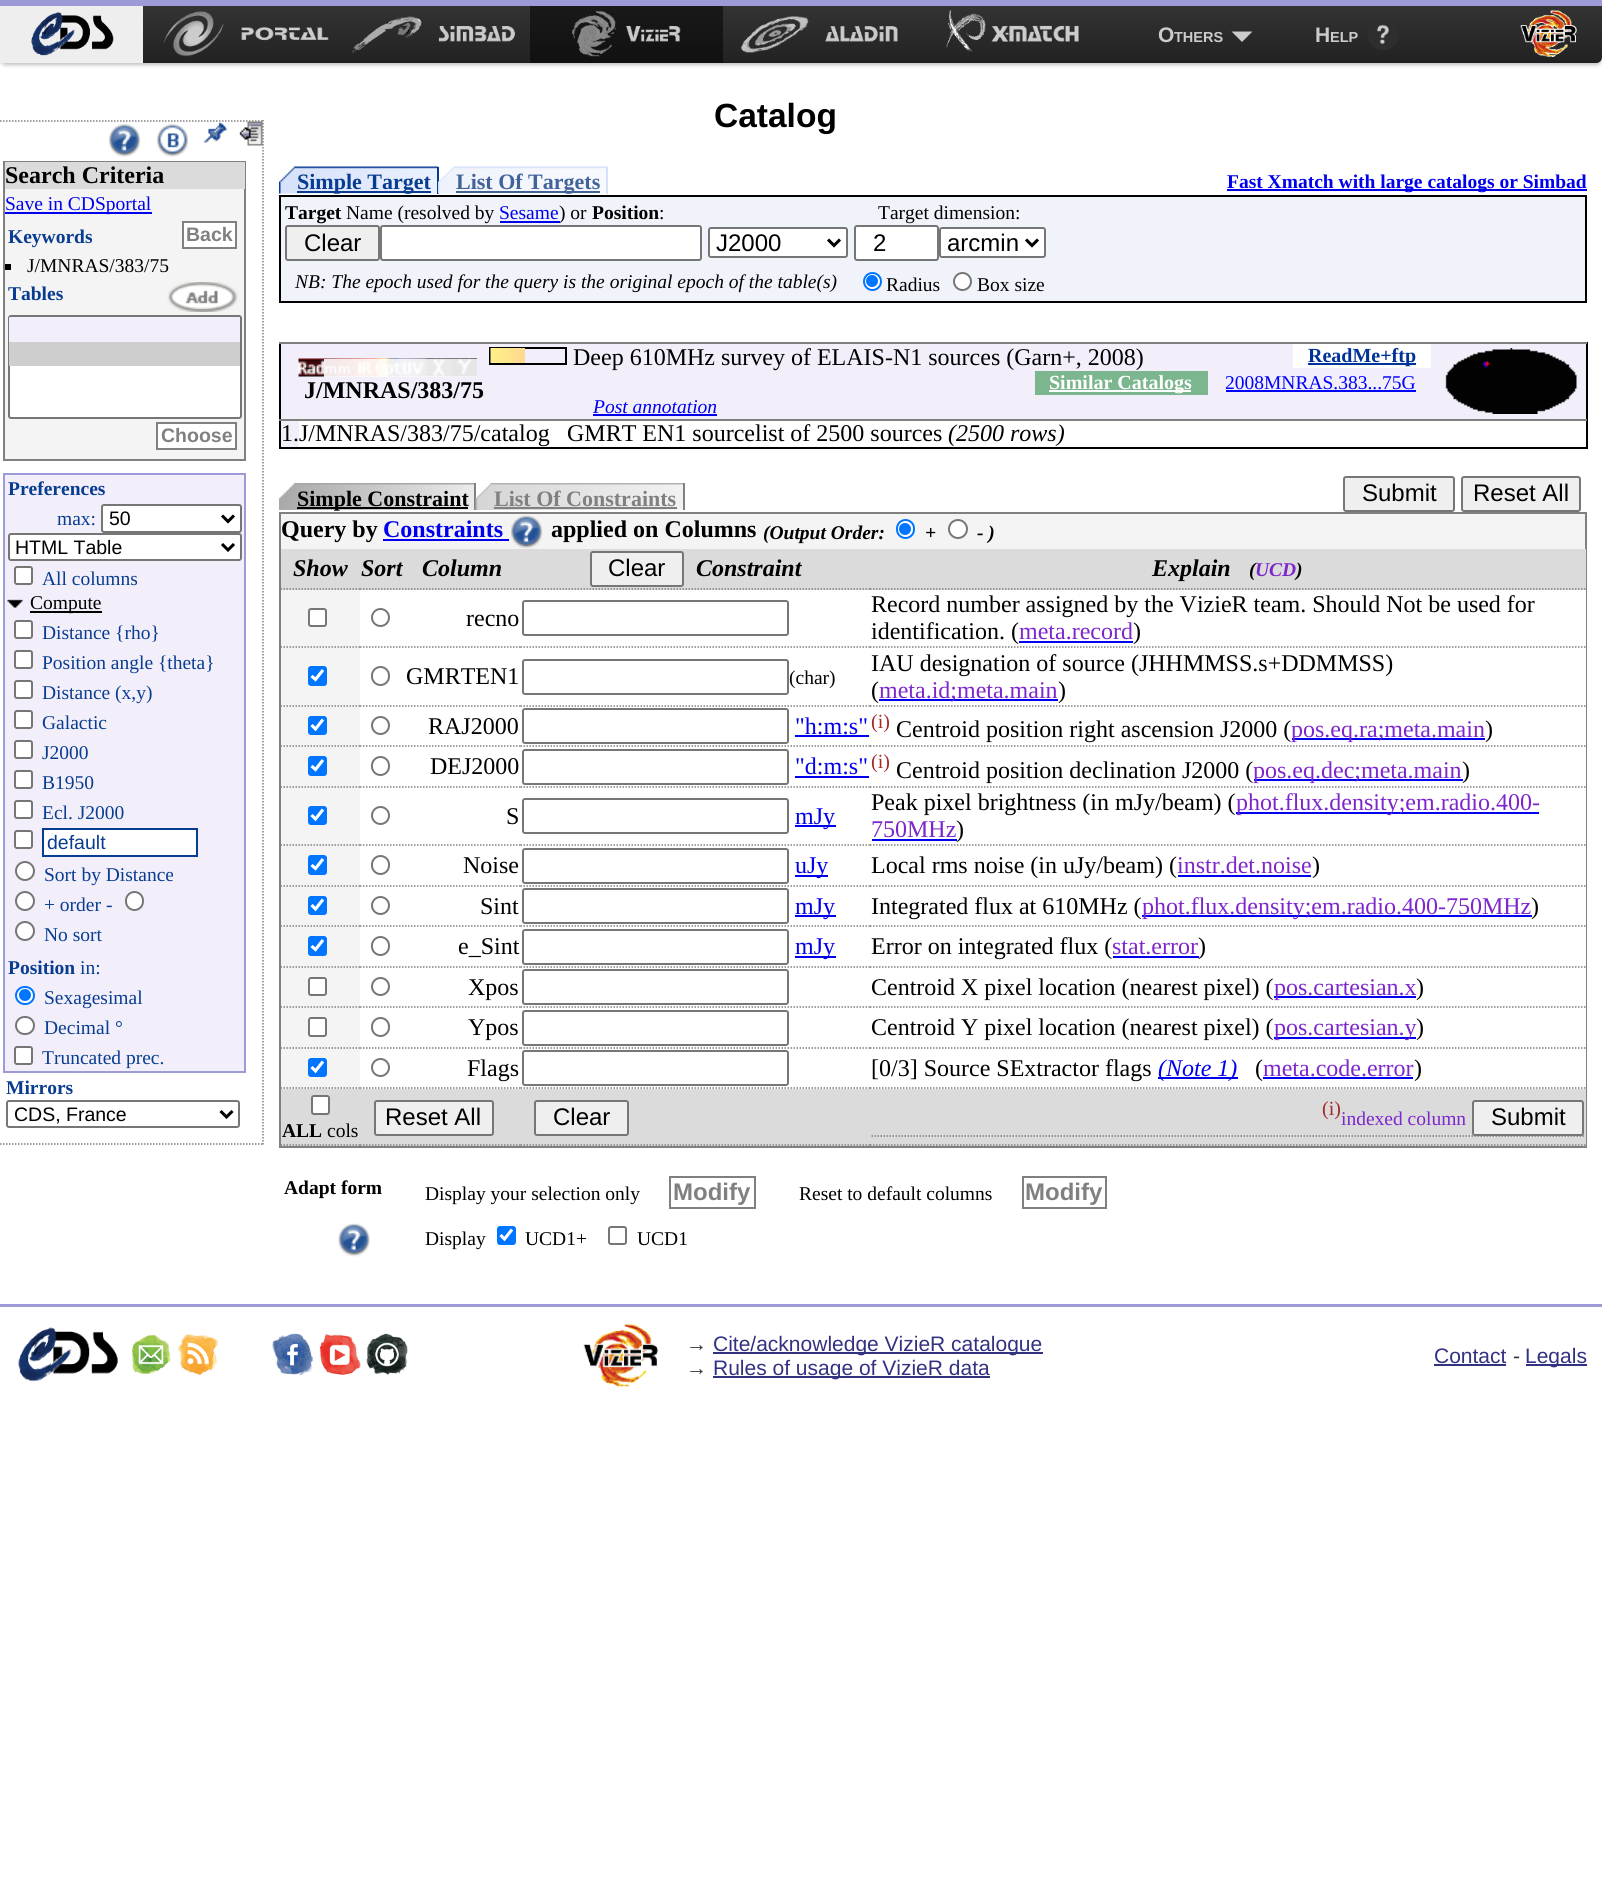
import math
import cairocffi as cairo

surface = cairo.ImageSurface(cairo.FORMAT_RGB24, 1602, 1901)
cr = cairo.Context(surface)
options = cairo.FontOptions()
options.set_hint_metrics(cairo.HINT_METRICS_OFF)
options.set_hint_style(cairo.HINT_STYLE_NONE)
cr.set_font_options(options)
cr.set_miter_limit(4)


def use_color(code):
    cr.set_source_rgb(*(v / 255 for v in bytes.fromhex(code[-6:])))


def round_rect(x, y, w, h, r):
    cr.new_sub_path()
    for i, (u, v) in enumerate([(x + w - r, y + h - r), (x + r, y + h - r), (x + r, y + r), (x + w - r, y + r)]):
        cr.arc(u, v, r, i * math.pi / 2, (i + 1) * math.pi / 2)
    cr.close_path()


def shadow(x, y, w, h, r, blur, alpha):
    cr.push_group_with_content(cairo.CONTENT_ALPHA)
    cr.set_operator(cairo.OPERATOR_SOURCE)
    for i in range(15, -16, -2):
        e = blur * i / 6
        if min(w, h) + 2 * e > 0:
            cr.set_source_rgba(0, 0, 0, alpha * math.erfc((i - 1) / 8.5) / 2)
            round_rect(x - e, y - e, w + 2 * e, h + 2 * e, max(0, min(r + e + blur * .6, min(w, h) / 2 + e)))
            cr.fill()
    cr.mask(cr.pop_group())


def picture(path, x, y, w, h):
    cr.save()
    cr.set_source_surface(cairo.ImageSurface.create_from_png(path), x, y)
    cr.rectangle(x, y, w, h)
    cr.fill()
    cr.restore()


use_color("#ffffff")
cr.paint()
use_color("#000000")
shadow(0, 2, 1602, 63, 6, 2, 0.25)
gradient = cairo.LinearGradient(801, 6, 801, 63)
gradient.add_color_stop_rgba(0, 0.2, 0.2, 0.2, 1)
gradient.add_color_stop_rgba(1, 0.133, 0.133, 0.133, 1)
cr.set_source(gradient)
cr.new_path()
cr.move_to(0, 6)
cr.line_to(1602, 6)
cr.line_to(1602, 57)
cr.curve_to(1602, 60.5, 1599.5, 63, 1596, 63)
cr.line_to(6, 63)
cr.curve_to(2.5, 63, 0, 60.5, 0, 57)
cr.close_path()
cr.fill()
cr.set_source_rgba(0, 0, 0, 0.1)
cr.new_path()
cr.move_to(0, 55)
cr.curve_to(0, 59, 1, 63, 6, 63)
cr.line_to(1596, 63)
cr.curve_to(1601, 63, 1602, 59, 1602, 55)
cr.curve_to(1602, 59, 1599, 62, 1596, 62)
cr.line_to(6, 62)
cr.curve_to(3, 62, 0, 59, 0, 55)
cr.close_path()
cr.fill()
use_color("#9c9bd5")
cr.rectangle(0, 0, 1602, 6)
cr.fill()
use_color("#eeeeee")
cr.rectangle(0, 6, 143, 57)
cr.fill()
picture("img1.png", 31, 12, 83, 44)
picture("img2.png", 163, 11, 61, 46)
picture("img3.png", 241, 26, 88, 15)
picture("img4.png", 351, 16, 71, 37)
picture("img5.png", 438, 26, 77, 16)
cr.set_source_rgba(0, 0, 0, 0.5)
cr.rectangle(530, 6, 193, 57)
cr.fill()
picture("img6.png", 572, 10, 44, 47)
picture("img7.png", 626, 25, 55, 17)
picture("img8.png", 740, 16, 69, 37)
picture("img9.png", 825, 26, 73, 16)
picture("img10.png", 946, 10, 40, 42)
picture("img11.png", 991, 25, 88, 17)
cr.select_font_face("Liberation Sans", cairo.FONT_SLANT_NORMAL, cairo.FONT_WEIGHT_BOLD)
cr.set_font_size(21)
use_color("#cccccc")
cr.move_to(1158, 42)
cr.show_text("O")
cr.set_font_size(14.5)
cr.move_to(1174, 42)
cr.show_text("THERS")
cr.new_path()
cr.move_to(1231.5, 31.5)
cr.line_to(1252.5, 31.5)
cr.line_to(1242, 42)
cr.close_path()
cr.fill()
cr.set_font_size(21)
cr.move_to(1315, 42)
cr.show_text("H")
cr.set_font_size(14.5)
cr.move_to(1330, 42)
cr.show_text("ELP")
picture("img12.png", 1368, 24, 30, 26)
picture("img13.png", 1520, 9, 57, 48)
cr.set_font_size(33.5)
use_color("#000000")
cr.move_to(714, 127)
cr.show_text("Catalog")
cr.new_path()
cr.move_to(0, 121)
cr.line_to(264, 121)
use_color("#808080")
cr.set_line_width(1.5)
cr.set_dash([1.5, 1.5])
cr.stroke()
cr.new_path()
cr.move_to(263, 120)
cr.line_to(263, 1144.5)
cr.stroke()
cr.new_path()
cr.move_to(0, 1144)
cr.line_to(264, 1144)
cr.stroke()
picture("img14.png", 109, 124, 32, 33)
picture("img15.png", 157, 124, 32, 33)
picture("img16.png", 203, 122, 24, 21)
picture("img17.png", 239, 121, 24, 25)
use_color("#f4f4f4")
cr.rectangle(5, 189, 239, 270)
cr.fill()
cr.rectangle(4, 162, 241, 298)
use_color("#808080")
cr.set_line_width(2)
cr.set_dash([])
cr.stroke()
use_color("#dbdbdb")
cr.rectangle(5, 162, 240, 27)
cr.fill()
cr.select_font_face("Liberation Serif", cairo.FONT_SLANT_NORMAL, cairo.FONT_WEIGHT_BOLD)
cr.set_font_size(24)
use_color("#000000")
cr.move_to(5, 183)
cr.show_text("Search Criteria")
use_color("#0000ee")
cr.rectangle(5, 212, 147, 2)
cr.fill()
cr.select_font_face("Liberation Serif")
cr.set_font_size(19.5)
cr.move_to(5, 210)
cr.show_text("Save in CDSportal")
cr.select_font_face("Liberation Serif", cairo.FONT_SLANT_NORMAL, cairo.FONT_WEIGHT_BOLD)
use_color("#083c91")
cr.move_to(8, 243)
cr.show_text("Keywords")
use_color("#ffffff")
cr.rectangle(183, 222, 53, 26)
cr.fill_preserve()
use_color("#808080")
cr.stroke()
cr.select_font_face("Liberation Sans", cairo.FONT_SLANT_NORMAL, cairo.FONT_WEIGHT_BOLD)
cr.move_to(186, 241)
cr.show_text("Back")
use_color("#000000")
cr.rectangle(5, 264, 6, 6)
cr.fill()
cr.select_font_face("Liberation Serif")
cr.move_to(27, 272)
cr.show_text("J/MNRAS/383/75")
cr.select_font_face("Liberation Serif", cairo.FONT_SLANT_NORMAL, cairo.FONT_WEIGHT_BOLD)
use_color("#083c91")
cr.move_to(8, 300)
cr.show_text("Tables")
picture("img18.png", 167, 282, 71, 30)
use_color("#ffffff")
round_rect(9, 316, 232, 102, 2)
cr.fill_preserve()
use_color("#767676")
cr.stroke()
use_color("#f2effb")
cr.new_path()
cr.move_to(10.5, 317)
cr.line_to(238.5, 317)
cr.curve_to(239.5, 317, 240, 317.5, 240, 318.5)
cr.line_to(240, 342)
cr.line_to(9, 342)
cr.line_to(9, 318.5)
cr.curve_to(9, 317.5, 9.5, 317, 10.5, 317)
cr.close_path()
cr.fill()
use_color("#cecece")
cr.rectangle(9, 342, 231, 24)
cr.fill()
use_color("#ffffff")
cr.rectangle(157, 423, 79, 26)
cr.fill_preserve()
use_color("#808080")
cr.stroke()
cr.select_font_face("Liberation Sans", cairo.FONT_SLANT_NORMAL, cairo.FONT_WEIGHT_BOLD)
cr.move_to(161, 442)
cr.show_text("Choose")
use_color("#f2effb")
cr.rectangle(4, 474, 241, 598)
cr.fill_preserve()
use_color("#9c9bd5")
cr.stroke()
cr.select_font_face("Liberation Serif", cairo.FONT_SLANT_NORMAL, cairo.FONT_WEIGHT_BOLD)
use_color("#083c91")
cr.move_to(8, 495)
cr.show_text("Preferences")
cr.select_font_face("Liberation Serif")
cr.move_to(57, 525)
cr.show_text("max:")
use_color("#ffffff")
round_rect(102, 505, 139, 27, 2)
cr.fill_preserve()
use_color("#767676")
cr.stroke()
cr.new_path()
cr.move_to(222, 515.5)
cr.line_to(228, 521.5)
cr.line_to(234, 515.5)
use_color("#000000")
cr.set_line_width(3)
cr.stroke()
cr.select_font_face("Liberation Sans")
cr.move_to(109, 525)
cr.show_text("50")
use_color("#ffffff")
round_rect(9, 534, 232, 26, 2)
cr.fill_preserve()
use_color("#767676")
cr.set_line_width(2)
cr.stroke()
cr.new_path()
cr.move_to(222, 544)
cr.line_to(228, 550)
cr.line_to(234, 544)
use_color("#000000")
cr.set_line_width(3)
cr.stroke()
cr.move_to(15, 554)
cr.show_text("HTML Table")
use_color("#ffffff")
round_rect(15, 567, 17, 17, 2)
cr.fill_preserve()
use_color("#767676")
cr.set_line_width(2)
cr.stroke()
cr.select_font_face("Liberation Serif")
use_color("#083c91")
cr.move_to(42, 585)
cr.show_text("All columns")
picture("img19.png", 7, 599, 16, 9)
use_color("#000000")
cr.rectangle(30, 611, 72, 2)
cr.fill()
cr.move_to(30, 609)
cr.show_text("Compute")
use_color("#ffffff")
round_rect(15, 621, 17, 17, 2)
cr.fill_preserve()
use_color("#767676")
cr.stroke()
use_color("#083c91")
cr.move_to(42, 639)
cr.show_text("Distance {rho}")
use_color("#ffffff")
round_rect(15, 651, 17, 17, 2)
cr.fill_preserve()
use_color("#767676")
cr.stroke()
use_color("#083c91")
cr.move_to(42, 669)
cr.show_text("Position angle {theta}")
use_color("#ffffff")
round_rect(15, 681, 17, 17, 2)
cr.fill_preserve()
use_color("#767676")
cr.stroke()
use_color("#083c91")
cr.move_to(42, 699)
cr.show_text("Distance (x,y)")
use_color("#ffffff")
round_rect(15, 711, 17, 17, 2)
cr.fill_preserve()
use_color("#767676")
cr.stroke()
use_color("#083c91")
cr.move_to(42, 729)
cr.show_text("Galactic")
use_color("#ffffff")
round_rect(15, 741, 17, 17, 2)
cr.fill_preserve()
use_color("#767676")
cr.stroke()
use_color("#083c91")
cr.move_to(42, 759)
cr.show_text("J2000")
use_color("#ffffff")
round_rect(15, 771, 17, 17, 2)
cr.fill_preserve()
use_color("#767676")
cr.stroke()
use_color("#083c91")
cr.move_to(42, 789)
cr.show_text("B1950")
use_color("#ffffff")
round_rect(15, 801, 17, 17, 2)
cr.fill_preserve()
use_color("#767676")
cr.stroke()
use_color("#083c91")
cr.move_to(42, 819)
cr.show_text("Ecl. J2000")
use_color("#ffffff")
round_rect(15, 831, 17, 17, 2)
cr.fill_preserve()
use_color("#767676")
cr.stroke()
use_color("#ffffff")
cr.rectangle(43, 829, 154, 27)
cr.fill_preserve()
use_color("#083c91")
cr.stroke()
cr.select_font_face("Liberation Sans")
cr.move_to(47, 849)
cr.show_text("default")
use_color("#ffffff")
cr.new_path()
cr.arc(25, 871, 9, 0, 2 * math.pi)
cr.fill_preserve()
use_color("#767676")
cr.stroke()
cr.select_font_face("Liberation Serif")
use_color("#083c91")
cr.move_to(44, 881)
cr.show_text("Sort by Distance")
use_color("#ffffff")
cr.new_path()
cr.arc(25, 901, 9, 0, 2 * math.pi)
cr.fill_preserve()
use_color("#767676")
cr.stroke()
use_color("#083c91")
cr.move_to(44, 911)
cr.show_text("+ order -")
use_color("#ffffff")
round_rect(126, 892, 17, 18, 8.5)
cr.fill_preserve()
use_color("#767676")
cr.stroke()
use_color("#ffffff")
cr.arc(25, 931, 9, 0, 2 * math.pi)
cr.fill_preserve()
use_color("#767676")
cr.stroke()
use_color("#083c91")
cr.move_to(44, 941)
cr.show_text("No sort")
cr.select_font_face("Liberation Serif", cairo.FONT_SLANT_NORMAL, cairo.FONT_WEIGHT_BOLD)
cr.move_to(8, 974)
cr.show_text("Position")
cr.select_font_face("Liberation Serif")
cr.move_to(80, 974)
cr.show_text("in:")
use_color("#ffffff")
round_rect(16, 987, 18, 17, 8.5)
cr.fill_preserve()
use_color("#0075ff")
cr.stroke()
cr.arc(25, 995, 6, 0, 2 * math.pi)
cr.fill()
use_color("#083c91")
cr.move_to(44, 1004)
cr.show_text("Sexagesimal")
use_color("#ffffff")
round_rect(16, 1017, 18, 17, 8.5)
cr.fill_preserve()
use_color("#767676")
cr.stroke()
use_color("#083c91")
cr.move_to(44, 1034)
cr.show_text("Decimal °")
use_color("#ffffff")
round_rect(15, 1047, 17, 17, 2)
cr.fill_preserve()
use_color("#767676")
cr.stroke()
use_color("#083c91")
cr.move_to(42, 1064)
cr.show_text("Truncated prec.")
cr.select_font_face("Liberation Serif", cairo.FONT_SLANT_NORMAL, cairo.FONT_WEIGHT_BOLD)
cr.move_to(6, 1094)
cr.show_text("Mirrors")
round_rect(7, 1101, 232, 26, 2)
use_color("#767676")
cr.stroke()
cr.new_path()
cr.move_to(220.5, 1111)
cr.line_to(226.5, 1117)
cr.line_to(232.5, 1111)
use_color("#000000")
cr.set_line_width(3)
cr.stroke()
cr.select_font_face("Liberation Sans")
cr.move_to(14, 1121)
cr.show_text("CDS, France")
picture("img20.png", 279, 166, 159, 28)
use_color("#083c91")
cr.rectangle(437, 167, 2, 27)
cr.fill()
picture("img21.png", 438, 166, 170, 28)
cr.rectangle(297, 191, 134, 2)
cr.fill()
cr.select_font_face("Liberation Serif", cairo.FONT_SLANT_NORMAL, cairo.FONT_WEIGHT_BOLD)
cr.set_font_size(22)
cr.move_to(297, 189)
cr.show_text("Simple Target")
use_color("#42639a")
cr.rectangle(456, 191, 144, 2)
cr.fill()
cr.move_to(456, 189)
cr.show_text("List Of Targets")
use_color("#d5e1fb")
cr.rectangle(606, 167, 2, 27)
cr.fill()
use_color("#0000ee")
cr.rectangle(1227, 189, 360, 2)
cr.fill()
cr.set_font_size(19.5)
cr.move_to(1227, 188)
cr.show_text("Fast Xmatch with large catalogs or Simbad")
use_color("#f1f3fb")
cr.rectangle(280, 196, 1306, 106)
cr.fill_preserve()
use_color("#000000")
cr.set_line_width(2)
cr.stroke()
cr.move_to(285, 219)
cr.show_text("Target")
cr.select_font_face("Liberation Serif")
cr.move_to(346, 219)
cr.show_text("Name (resolved by")
use_color("#0000ee")
cr.move_to(499, 219)
cr.show_text("Sesame")
cr.rectangle(500, 221, 60, 2)
cr.fill()
use_color("#000000")
cr.move_to(559, 219)
cr.show_text(") or")
cr.select_font_face("Liberation Serif", cairo.FONT_SLANT_NORMAL, cairo.FONT_WEIGHT_BOLD)
cr.move_to(592, 219)
cr.show_text("Position")
cr.select_font_face("Liberation Serif")
cr.move_to(659, 219)
cr.show_text(":")
use_color("#efefef")
round_rect(286, 226, 93, 34, 2)
cr.fill_preserve()
use_color("#767676")
cr.stroke()
cr.select_font_face("Liberation Sans")
cr.set_font_size(24)
use_color("#000000")
cr.move_to(304, 251)
cr.show_text("Clear")
use_color("#ffffff")
round_rect(381, 226, 320, 34, 2)
cr.fill_preserve()
use_color("#767676")
cr.stroke()
use_color("#ffffff")
round_rect(709, 228, 138, 29, 2)
cr.fill_preserve()
use_color("#767676")
cr.stroke()
cr.new_path()
cr.move_to(828, 239.5)
cr.line_to(834, 245.5)
cr.line_to(840, 239.5)
use_color("#000000")
cr.set_line_width(3)
cr.stroke()
cr.move_to(716, 251)
cr.show_text("J2000")
cr.select_font_face("Liberation Serif")
cr.set_font_size(19.5)
cr.move_to(878, 219)
cr.show_text("Target dimension:")
use_color("#ffffff")
round_rect(855, 226, 83, 34, 2)
cr.fill_preserve()
use_color("#767676")
cr.set_line_width(2)
cr.stroke()
cr.select_font_face("Liberation Sans")
cr.set_font_size(24)
use_color("#000000")
cr.move_to(873, 251)
cr.show_text("2")
use_color("#ffffff")
round_rect(940, 228, 105, 29, 2)
cr.fill_preserve()
use_color("#767676")
cr.stroke()
cr.new_path()
cr.move_to(1026, 239.5)
cr.line_to(1032, 245.5)
cr.line_to(1038, 239.5)
use_color("#000000")
cr.set_line_width(3)
cr.stroke()
cr.move_to(947, 251)
cr.show_text("arcmin")
cr.select_font_face("Liberation Serif", cairo.FONT_SLANT_ITALIC)
cr.set_font_size(19.5)
cr.move_to(295, 288)
cr.show_text("NB: The epoch used for the query is the original epoch of the table(s)")
use_color("#ffffff")
cr.new_path()
cr.arc(872.5, 281.5, 8.5, 0, 2 * math.pi)
cr.fill_preserve()
use_color("#0075ff")
cr.set_line_width(2)
cr.stroke()
cr.arc(872, 281, 6, 0, 2 * math.pi)
cr.fill()
cr.select_font_face("Liberation Serif")
use_color("#000000")
cr.move_to(886, 291)
cr.show_text("Radius")
use_color("#ffffff")
cr.new_path()
cr.arc(962.5, 281.5, 8.5, 0, 2 * math.pi)
cr.fill_preserve()
use_color("#767676")
cr.stroke()
use_color("#000000")
cr.move_to(977, 291)
cr.show_text("Box size")
cr.rectangle(1586, 342, 2, 107)
cr.fill()
cr.rectangle(279, 447, 1308, 2)
cr.fill()
cr.rectangle(279, 342, 2, 107)
cr.fill()
use_color("#808080")
cr.rectangle(279, 342, 1308, 2)
cr.fill()
use_color("#f2effb")
cr.rectangle(573, 344, 1013, 75)
cr.fill()
picture("img22.png", 1445, 348, 132, 66)
cr.rectangle(281, 344, 286, 75)
cr.fill()
cr.rectangle(567, 344, 6, 76)
cr.fill()
picture("img23.png", 298, 358, 179, 19)
cr.set_source_rgba(1, 1, 1, 0.9)
cr.rectangle(324, 359, 26, 18)
cr.fill()
cr.rectangle(350, 359, 25, 18)
cr.fill()
cr.rectangle(375, 359, 26, 18)
cr.fill()
cr.rectangle(401, 359, 25, 18)
cr.fill()
cr.rectangle(426, 359, 26, 18)
cr.fill()
cr.rectangle(452, 359, 25, 18)
cr.fill()
cr.select_font_face("Liberation Serif", cairo.FONT_SLANT_NORMAL, cairo.FONT_WEIGHT_BOLD)
cr.set_font_size(24)
use_color("#000000")
cr.move_to(304, 398)
cr.show_text("J/MNRAS/383/75")
cr.rectangle(490, 348, 76, 16)
cr.stroke()
picture("img24.png", 490, 348, 35, 15)
cr.select_font_face("Liberation Serif")
cr.move_to(573, 365)
cr.show_text("Deep 610MHz survey of ELAIS-N1 sources (Garn+, 2008)")
use_color("#ffffff")
cr.rectangle(1293, 344, 138, 24)
cr.fill()
use_color("#003399")
cr.rectangle(1308, 363, 108, 2)
cr.fill()
cr.select_font_face("Liberation Serif", cairo.FONT_SLANT_NORMAL, cairo.FONT_WEIGHT_BOLD)
cr.set_font_size(20)
cr.move_to(1308, 362)
cr.show_text("ReadMe+ftp")
use_color("#7cb68e")
cr.rectangle(1035, 371, 173, 24)
cr.fill()
use_color("#ffffff")
cr.rectangle(1049, 390, 142, 2)
cr.fill()
cr.move_to(1049, 389)
cr.show_text("Similar Catalogs")
cr.select_font_face("Liberation Serif")
cr.set_font_size(19.5)
use_color("#0000ff")
cr.move_to(1225, 389)
cr.show_text("2008MNRAS.383...75G")
cr.rectangle(1226, 390, 190, 2)
cr.fill()
cr.select_font_face("Liberation Serif", cairo.FONT_SLANT_ITALIC)
use_color("#0000ee")
cr.move_to(593, 413)
cr.show_text("Post annotation")
cr.rectangle(593, 414, 124, 2)
cr.fill()
use_color("#f2effb")
cr.rectangle(281, 421, 18, 26)
cr.fill()
cr.select_font_face("Liberation Serif")
cr.set_font_size(24)
use_color("#000000")
cr.move_to(281, 441)
cr.show_text("1.J/MNRAS/383/75/catalog")
use_color("#808080")
cr.rectangle(279, 419, 1308, 2)
cr.fill()
use_color("#000000")
cr.move_to(567, 441)
cr.show_text("GMRT EN1 sourcelist of 2500 sources")
cr.select_font_face("Liberation Serif", cairo.FONT_SLANT_ITALIC)
cr.move_to(948, 441)
cr.show_text("(2500 rows)")
picture("img25.png", 279, 483, 195, 27)
use_color("#808080")
cr.rectangle(474, 483, 2, 27)
cr.fill()
picture("img26.png", 475, 483, 208, 27)
use_color("#000000")
cr.rectangle(297, 507, 171, 2)
cr.fill()
cr.select_font_face("Liberation Serif", cairo.FONT_SLANT_NORMAL, cairo.FONT_WEIGHT_BOLD)
cr.set_font_size(22)
cr.move_to(297, 506)
cr.show_text("Simple Constraint")
use_color("#808080")
cr.move_to(494, 506)
cr.show_text("List Of Constraints")
cr.rectangle(683, 483, 2, 27)
cr.fill()
cr.rectangle(494, 507, 183, 2)
cr.fill()
use_color("#efefef")
round_rect(1344, 477, 110, 34, 2)
cr.fill_preserve()
use_color("#767676")
cr.stroke()
cr.select_font_face("Liberation Sans")
cr.set_font_size(24)
use_color("#000000")
cr.move_to(1362, 501)
cr.show_text("Submit")
use_color("#efefef")
round_rect(1462, 477, 118, 34, 2)
cr.fill_preserve()
use_color("#767676")
cr.stroke()
use_color("#000000")
cr.move_to(1473, 501)
cr.show_text("Reset All")
use_color("#f4f4f4")
cr.rectangle(281, 514, 1304, 35)
cr.fill()
cr.rectangle(280, 513, 1306, 634)
use_color("#808080")
cr.stroke()
cr.select_font_face("Liberation Serif", cairo.FONT_SLANT_NORMAL, cairo.FONT_WEIGHT_BOLD)
use_color("#000000")
cr.move_to(281, 537)
cr.show_text("Query by")
use_color("#0000ee")
cr.move_to(383, 537)
cr.show_text("Constraints")
cr.rectangle(383, 539, 126, 2)
cr.fill()
picture("img27.png", 511, 515, 32, 34)
use_color("#000000")
cr.move_to(551, 537)
cr.show_text("applied on Columns")
cr.select_font_face("Liberation Serif", cairo.FONT_SLANT_ITALIC, cairo.FONT_WEIGHT_BOLD)
cr.set_font_size(19.5)
cr.move_to(763, 539)
cr.show_text("(Output Order:")
use_color("#ffffff")
round_rect(897, 520, 17, 18, 8.5)
cr.fill_preserve()
use_color("#0075ff")
cr.stroke()
cr.arc(905, 529, 6, 0, 2 * math.pi)
cr.fill()
use_color("#000000")
cr.move_to(925, 539)
cr.show_text("+")
use_color("#ffffff")
cr.new_path()
cr.arc(958, 529, 9, 0, 2 * math.pi)
cr.fill_preserve()
use_color("#767676")
cr.stroke()
use_color("#000000")
cr.move_to(977, 539)
cr.show_text("- )")
use_color("#ffffff")
cr.rectangle(1585, 590, 1, 499)
cr.fill()
use_color("#dbdbdb")
cr.rectangle(281, 549, 1305, 41)
cr.fill()
cr.new_path()
cr.move_to(280.5, 589)
cr.line_to(360, 589)
use_color("#808080")
cr.set_line_width(1.5)
cr.set_dash([1.5, 1.5])
cr.stroke()
cr.set_font_size(24)
use_color("#000000")
cr.move_to(293, 576)
cr.show_text("Show")
cr.new_path()
cr.move_to(360, 589)
cr.line_to(405, 589)
use_color("#808080")
cr.stroke()
use_color("#000000")
cr.move_to(361, 576)
cr.show_text("Sort")
cr.new_path()
cr.move_to(405, 589)
cr.line_to(520.5, 589)
use_color("#808080")
cr.stroke()
use_color("#000000")
cr.move_to(422, 576)
cr.show_text("Column")
cr.new_path()
cr.move_to(520.5, 589)
cr.line_to(870, 589)
use_color("#808080")
cr.stroke()
use_color("#efefef")
round_rect(591, 552, 92, 34, 2)
cr.fill_preserve()
use_color("#767676")
cr.set_line_width(2)
cr.set_dash([])
cr.stroke()
cr.select_font_face("Liberation Sans")
use_color("#000000")
cr.move_to(608, 576)
cr.show_text("Clear")
cr.select_font_face("Liberation Serif", cairo.FONT_SLANT_ITALIC, cairo.FONT_WEIGHT_BOLD)
cr.move_to(696, 576)
cr.show_text("Constraint")
cr.new_path()
cr.move_to(870, 589)
cr.line_to(1585.5, 589)
use_color("#808080")
cr.set_line_width(1.5)
cr.set_dash([1.5, 1.5])
cr.stroke()
use_color("#000000")
cr.move_to(1152, 576)
cr.show_text("Explain")
cr.set_font_size(19.5)
cr.move_to(1249, 576)
cr.show_text("(")
use_color("#7d26cd")
cr.move_to(1255, 576)
cr.show_text("UCD")
use_color("#000000")
cr.move_to(1296, 576)
cr.show_text(")")
use_color("#f4f4f4")
cr.rectangle(281, 590, 79, 499)
cr.fill()
cr.new_path()
cr.move_to(280.5, 647)
cr.line_to(360, 647)
use_color("#808080")
cr.stroke()
use_color("#ffffff")
round_rect(309, 609, 17, 17, 2)
cr.fill_preserve()
use_color("#767676")
cr.set_line_width(2)
cr.set_dash([])
cr.stroke()
cr.new_path()
cr.move_to(360, 647)
cr.line_to(405, 647)
use_color("#808080")
cr.set_line_width(1.5)
cr.set_dash([1.5, 1.5])
cr.stroke()
cr.arc(380.5, 617.5, 8.5, 0, 2 * math.pi)
use_color("#767676")
cr.set_line_width(2)
cr.set_dash([])
cr.stroke()
cr.new_path()
cr.move_to(405, 647)
cr.line_to(520.5, 647)
use_color("#808080")
cr.set_line_width(1.5)
cr.set_dash([1.5, 1.5])
cr.stroke()
cr.select_font_face("Liberation Serif")
cr.set_font_size(24)
use_color("#000000")
cr.move_to(466, 626)
cr.show_text("recno")
cr.new_path()
cr.move_to(520.5, 647)
cr.line_to(870, 647)
use_color("#808080")
cr.stroke()
round_rect(523, 601, 265, 34, 2)
use_color("#767676")
cr.set_line_width(2)
cr.set_dash([])
cr.stroke()
cr.new_path()
cr.move_to(870, 647)
cr.line_to(1585.5, 647)
use_color("#808080")
cr.set_line_width(1.5)
cr.set_dash([1.5, 1.5])
cr.stroke()
use_color("#000000")
cr.move_to(871, 612)
cr.show_text("Record number assigned by the VizieR team. Should Not be used for")
cr.move_to(871, 639)
cr.show_text("identification. (")
use_color("#7d26cd")
cr.move_to(1019, 639)
cr.show_text("meta.record")
use_color("#000000")
cr.move_to(1133, 639)
cr.show_text(")")
use_color("#0000ee")
cr.rectangle(1019, 641, 114, 2)
cr.fill()
cr.new_path()
cr.move_to(280.5, 706)
cr.line_to(360, 706)
use_color("#808080")
cr.stroke()
use_color("#0075ff")
round_rect(308, 666, 19, 20, 3)
cr.fill()
cr.new_path()
cr.move_to(311.5, 676)
cr.line_to(315.5, 679.5)
cr.line_to(323, 670)
use_color("#ffffff")
cr.set_line_width(3.1)
cr.set_dash([])
cr.stroke()
cr.new_path()
cr.move_to(360, 706)
cr.line_to(405, 706)
use_color("#808080")
cr.set_line_width(1.5)
cr.set_dash([1.5, 1.5])
cr.stroke()
round_rect(372, 667, 17, 18, 8.5)
use_color("#767676")
cr.set_line_width(2)
cr.set_dash([])
cr.stroke()
cr.new_path()
cr.move_to(405, 706)
cr.line_to(520.5, 706)
use_color("#808080")
cr.set_line_width(1.5)
cr.set_dash([1.5, 1.5])
cr.stroke()
use_color("#000000")
cr.move_to(406, 684)
cr.show_text("GMRTEN1")
cr.new_path()
cr.move_to(520.5, 706)
cr.line_to(870, 706)
use_color("#808080")
cr.stroke()
round_rect(523, 660, 265, 34, 2)
use_color("#767676")
cr.set_line_width(2)
cr.set_dash([])
cr.stroke()
cr.set_font_size(19.5)
use_color("#000000")
cr.move_to(789, 684)
cr.show_text("(char)")
cr.new_path()
cr.move_to(870, 706)
cr.line_to(1585.5, 706)
use_color("#808080")
cr.set_line_width(1.5)
cr.set_dash([1.5, 1.5])
cr.stroke()
cr.set_font_size(24)
use_color("#000000")
cr.move_to(871, 671)
cr.show_text("IAU designation of source (JHHMMSS.s+DDMMSS)")
cr.move_to(871, 698)
cr.show_text("(")
use_color("#0000ee")
cr.rectangle(879, 699, 179, 2)
cr.fill()
use_color("#7d26cd")
cr.move_to(879, 698)
cr.show_text("meta.id;meta.main")
use_color("#000000")
cr.move_to(1058, 698)
cr.show_text(")")
cr.new_path()
cr.move_to(280.5, 746)
cr.line_to(360, 746)
use_color("#808080")
cr.stroke()
use_color("#0075ff")
round_rect(308, 716, 19, 19, 3)
cr.fill()
cr.new_path()
cr.move_to(311.5, 725)
cr.line_to(315.5, 729)
cr.line_to(323, 719.5)
use_color("#ffffff")
cr.set_line_width(3.1)
cr.set_dash([])
cr.stroke()
cr.new_path()
cr.move_to(360, 746)
cr.line_to(405, 746)
use_color("#808080")
cr.set_line_width(1.5)
cr.set_dash([1.5, 1.5])
cr.stroke()
cr.arc(380.5, 725.5, 8.5, 0, 2 * math.pi)
use_color("#767676")
cr.set_line_width(2)
cr.set_dash([])
cr.stroke()
cr.new_path()
cr.move_to(405, 746)
cr.line_to(520.5, 746)
use_color("#808080")
cr.set_line_width(1.5)
cr.set_dash([1.5, 1.5])
cr.stroke()
use_color("#000000")
cr.move_to(428, 734)
cr.show_text("RAJ2000")
cr.new_path()
cr.move_to(520.5, 746)
cr.line_to(870, 746)
use_color("#808080")
cr.stroke()
round_rect(523, 709, 265, 34, 2)
use_color("#767676")
cr.set_line_width(2)
cr.set_dash([])
cr.stroke()
use_color("#0000ee")
cr.move_to(795, 734)
cr.show_text("\"h:m:s\"")
cr.rectangle(795, 735, 74, 2)
cr.fill()
cr.new_path()
cr.move_to(870, 746)
cr.line_to(1585.5, 746)
use_color("#808080")
cr.set_line_width(1.5)
cr.set_dash([1.5, 1.5])
cr.stroke()
cr.set_font_size(20)
use_color("#a52a2a")
cr.move_to(871, 728)
cr.show_text("(i)")
cr.set_font_size(24)
use_color("#000000")
cr.move_to(896, 737)
cr.show_text("Centroid position right ascension J2000 (")
use_color("#0000ee")
cr.rectangle(1292, 738, 193, 2)
cr.fill()
use_color("#7d26cd")
cr.move_to(1291, 737)
cr.show_text("pos.eq.ra;meta.main")
use_color("#000000")
cr.move_to(1485, 737)
cr.show_text(")")
cr.new_path()
cr.move_to(280.5, 787)
cr.line_to(360, 787)
use_color("#808080")
cr.stroke()
use_color("#0075ff")
round_rect(308, 756, 19, 20, 3)
cr.fill()
cr.new_path()
cr.move_to(311.5, 766)
cr.line_to(315.5, 769.5)
cr.line_to(323, 760)
use_color("#ffffff")
cr.set_line_width(3.1)
cr.set_dash([])
cr.stroke()
cr.new_path()
cr.move_to(360, 787)
cr.line_to(405, 787)
use_color("#808080")
cr.set_line_width(1.5)
cr.set_dash([1.5, 1.5])
cr.stroke()
round_rect(372, 757, 17, 18, 8.5)
use_color("#767676")
cr.set_line_width(2)
cr.set_dash([])
cr.stroke()
cr.new_path()
cr.move_to(405, 787)
cr.line_to(520.5, 787)
use_color("#808080")
cr.set_line_width(1.5)
cr.set_dash([1.5, 1.5])
cr.stroke()
use_color("#000000")
cr.move_to(430, 774)
cr.show_text("DEJ2000")
cr.new_path()
cr.move_to(520.5, 787)
cr.line_to(870, 787)
use_color("#808080")
cr.stroke()
round_rect(523, 750, 265, 34, 2)
use_color("#767676")
cr.set_line_width(2)
cr.set_dash([])
cr.stroke()
use_color("#0000ee")
cr.move_to(795, 774)
cr.show_text("\"d:m:s\"")
cr.rectangle(795, 776, 74, 2)
cr.fill()
cr.new_path()
cr.move_to(870, 787)
cr.line_to(1585.5, 787)
use_color("#808080")
cr.set_line_width(1.5)
cr.set_dash([1.5, 1.5])
cr.stroke()
cr.set_font_size(20)
use_color("#a52a2a")
cr.move_to(871, 768)
cr.show_text("(i)")
cr.set_font_size(24)
use_color("#000000")
cr.move_to(896, 778)
cr.show_text("Centroid position declination J2000 (")
use_color("#0000ee")
cr.rectangle(1254, 779, 209, 2)
cr.fill()
use_color("#7d26cd")
cr.move_to(1253, 778)
cr.show_text("pos.eq.dec;meta.main")
use_color("#000000")
cr.move_to(1462, 778)
cr.show_text(")")
cr.new_path()
cr.move_to(280.5, 845)
cr.line_to(360, 845)
use_color("#808080")
cr.stroke()
use_color("#0075ff")
round_rect(308, 806, 19, 19, 3)
cr.fill()
cr.new_path()
cr.move_to(311.5, 815)
cr.line_to(315.5, 819)
cr.line_to(323, 809.5)
use_color("#ffffff")
cr.set_line_width(3.1)
cr.set_dash([])
cr.stroke()
cr.new_path()
cr.move_to(360, 845)
cr.line_to(405, 845)
use_color("#808080")
cr.set_line_width(1.5)
cr.set_dash([1.5, 1.5])
cr.stroke()
cr.arc(380.5, 815.5, 8.5, 0, 2 * math.pi)
use_color("#767676")
cr.set_line_width(2)
cr.set_dash([])
cr.stroke()
cr.new_path()
cr.move_to(405, 845)
cr.line_to(520.5, 845)
use_color("#808080")
cr.set_line_width(1.5)
cr.set_dash([1.5, 1.5])
cr.stroke()
use_color("#000000")
cr.move_to(506, 824)
cr.show_text("S")
cr.new_path()
cr.move_to(520.5, 845)
cr.line_to(870, 845)
use_color("#808080")
cr.stroke()
round_rect(523, 799, 265, 34, 2)
use_color("#767676")
cr.set_line_width(2)
cr.set_dash([])
cr.stroke()
use_color("#0000ee")
cr.rectangle(795, 825, 41, 2)
cr.fill()
cr.move_to(795, 824)
cr.show_text("mJy")
cr.new_path()
cr.move_to(870, 845)
cr.line_to(1585.5, 845)
use_color("#808080")
cr.set_line_width(1.5)
cr.set_dash([1.5, 1.5])
cr.stroke()
use_color("#000000")
cr.move_to(871, 810)
cr.show_text("Peak pixel brightness (in mJy/beam) (")
use_color("#0000ee")
cr.rectangle(1236, 812, 303, 2)
cr.fill()
use_color("#7d26cd")
cr.move_to(1236, 810)
cr.show_text("phot.flux.density;em.radio.400-")
cr.move_to(871, 837)
cr.show_text("750MHz")
use_color("#000000")
cr.move_to(956, 837)
cr.show_text(")")
use_color("#0000ee")
cr.rectangle(872, 839, 85, 2)
cr.fill()
cr.new_path()
cr.move_to(280.5, 886)
cr.line_to(360, 886)
use_color("#808080")
cr.stroke()
use_color("#0075ff")
round_rect(308, 855, 19, 20, 3)
cr.fill()
cr.new_path()
cr.move_to(311.5, 865)
cr.line_to(315.5, 868.5)
cr.line_to(323, 859)
use_color("#ffffff")
cr.set_line_width(3.1)
cr.set_dash([])
cr.stroke()
cr.new_path()
cr.move_to(360, 886)
cr.line_to(405, 886)
use_color("#808080")
cr.set_line_width(1.5)
cr.set_dash([1.5, 1.5])
cr.stroke()
round_rect(372, 856, 17, 18, 8.5)
use_color("#767676")
cr.set_line_width(2)
cr.set_dash([])
cr.stroke()
cr.new_path()
cr.move_to(405, 886)
cr.line_to(520.5, 886)
use_color("#808080")
cr.set_line_width(1.5)
cr.set_dash([1.5, 1.5])
cr.stroke()
use_color("#000000")
cr.move_to(463, 873)
cr.show_text("Noise")
cr.new_path()
cr.move_to(520.5, 886)
cr.line_to(870, 886)
use_color("#808080")
cr.stroke()
round_rect(523, 849, 265, 34, 2)
use_color("#767676")
cr.set_line_width(2)
cr.set_dash([])
cr.stroke()
use_color("#0000ee")
cr.rectangle(795, 875, 33, 2)
cr.fill()
cr.move_to(795, 873)
cr.show_text("uJy")
cr.new_path()
cr.move_to(870, 886)
cr.line_to(1585.5, 886)
use_color("#808080")
cr.set_line_width(1.5)
cr.set_dash([1.5, 1.5])
cr.stroke()
use_color("#000000")
cr.move_to(871, 873)
cr.show_text("Local rms noise (in uJy/beam) (")
use_color("#7d26cd")
cr.move_to(1177, 873)
cr.show_text("instr.det.noise")
use_color("#000000")
cr.move_to(1312, 873)
cr.show_text(")")
use_color("#0000ee")
cr.rectangle(1178, 875, 133, 2)
cr.fill()
cr.new_path()
cr.move_to(280.5, 926)
cr.line_to(360, 926)
use_color("#808080")
cr.stroke()
use_color("#0075ff")
round_rect(308, 896, 19, 19, 3)
cr.fill()
cr.new_path()
cr.move_to(311.5, 905)
cr.line_to(315.5, 909)
cr.line_to(323, 899.5)
use_color("#ffffff")
cr.set_line_width(3.1)
cr.set_dash([])
cr.stroke()
cr.new_path()
cr.move_to(360, 926)
cr.line_to(405, 926)
use_color("#808080")
cr.set_line_width(1.5)
cr.set_dash([1.5, 1.5])
cr.stroke()
cr.arc(380.5, 905.5, 8.5, 0, 2 * math.pi)
use_color("#767676")
cr.set_line_width(2)
cr.set_dash([])
cr.stroke()
cr.new_path()
cr.move_to(405, 926)
cr.line_to(520.5, 926)
use_color("#808080")
cr.set_line_width(1.5)
cr.set_dash([1.5, 1.5])
cr.stroke()
use_color("#000000")
cr.move_to(480, 914)
cr.show_text("Sint")
cr.new_path()
cr.move_to(520.5, 926)
cr.line_to(870, 926)
use_color("#808080")
cr.stroke()
round_rect(523, 889, 265, 34, 2)
use_color("#767676")
cr.set_line_width(2)
cr.set_dash([])
cr.stroke()
use_color("#0000ee")
cr.rectangle(795, 915, 41, 2)
cr.fill()
cr.move_to(795, 914)
cr.show_text("mJy")
cr.new_path()
cr.move_to(870, 926)
cr.line_to(1585.5, 926)
use_color("#808080")
cr.set_line_width(1.5)
cr.set_dash([1.5, 1.5])
cr.stroke()
use_color("#000000")
cr.move_to(871, 914)
cr.show_text("Integrated flux at 610MHz (")
use_color("#0000ee")
cr.rectangle(1142, 915, 390, 2)
cr.fill()
use_color("#7d26cd")
cr.move_to(1142, 914)
cr.show_text("phot.flux.density;em.radio.400-750MHz")
use_color("#000000")
cr.move_to(1531, 914)
cr.show_text(")")
cr.new_path()
cr.move_to(280.5, 967)
cr.line_to(360, 967)
use_color("#808080")
cr.stroke()
use_color("#0075ff")
round_rect(308, 936, 19, 20, 3)
cr.fill()
cr.new_path()
cr.move_to(311.5, 946)
cr.line_to(315.5, 949.5)
cr.line_to(323, 940)
use_color("#ffffff")
cr.set_line_width(3.1)
cr.set_dash([])
cr.stroke()
cr.new_path()
cr.move_to(360, 967)
cr.line_to(405, 967)
use_color("#808080")
cr.set_line_width(1.5)
cr.set_dash([1.5, 1.5])
cr.stroke()
round_rect(372, 937, 17, 18, 8.5)
use_color("#767676")
cr.set_line_width(2)
cr.set_dash([])
cr.stroke()
cr.new_path()
cr.move_to(405, 967)
cr.line_to(520.5, 967)
use_color("#808080")
cr.set_line_width(1.5)
cr.set_dash([1.5, 1.5])
cr.stroke()
use_color("#000000")
cr.move_to(458, 954)
cr.show_text("e_Sint")
cr.new_path()
cr.move_to(520.5, 967)
cr.line_to(870, 967)
use_color("#808080")
cr.stroke()
round_rect(523, 930, 265, 34, 2)
use_color("#767676")
cr.set_line_width(2)
cr.set_dash([])
cr.stroke()
use_color("#0000ee")
cr.rectangle(795, 956, 41, 2)
cr.fill()
cr.move_to(795, 954)
cr.show_text("mJy")
cr.new_path()
cr.move_to(870, 967)
cr.line_to(1585.5, 967)
use_color("#808080")
cr.set_line_width(1.5)
cr.set_dash([1.5, 1.5])
cr.stroke()
use_color("#000000")
cr.move_to(871, 954)
cr.show_text("Error on integrated flux (")
use_color("#7d26cd")
cr.move_to(1112, 954)
cr.show_text("stat.error")
use_color("#000000")
cr.move_to(1198, 954)
cr.show_text(")")
use_color("#0000ee")
cr.rectangle(1113, 956, 86, 2)
cr.fill()
cr.new_path()
cr.move_to(280.5, 1007)
cr.line_to(360, 1007)
use_color("#808080")
cr.stroke()
use_color("#ffffff")
round_rect(309, 978, 17, 17, 2)
cr.fill_preserve()
use_color("#767676")
cr.set_line_width(2)
cr.set_dash([])
cr.stroke()
cr.new_path()
cr.move_to(360, 1007)
cr.line_to(405, 1007)
use_color("#808080")
cr.set_line_width(1.5)
cr.set_dash([1.5, 1.5])
cr.stroke()
cr.arc(380.5, 986.5, 8.5, 0, 2 * math.pi)
use_color("#767676")
cr.set_line_width(2)
cr.set_dash([])
cr.stroke()
cr.new_path()
cr.move_to(405, 1007)
cr.line_to(520.5, 1007)
use_color("#808080")
cr.set_line_width(1.5)
cr.set_dash([1.5, 1.5])
cr.stroke()
use_color("#000000")
cr.move_to(468, 995)
cr.show_text("Xpos")
cr.new_path()
cr.move_to(520.5, 1007)
cr.line_to(870, 1007)
use_color("#808080")
cr.stroke()
round_rect(523, 970, 265, 34, 2)
use_color("#767676")
cr.set_line_width(2)
cr.set_dash([])
cr.stroke()
cr.new_path()
cr.move_to(870, 1007)
cr.line_to(1585.5, 1007)
use_color("#808080")
cr.set_line_width(1.5)
cr.set_dash([1.5, 1.5])
cr.stroke()
use_color("#000000")
cr.move_to(871, 995)
cr.show_text("Centroid X pixel location (nearest pixel) (")
use_color("#0000ee")
cr.rectangle(1274, 996, 142, 2)
cr.fill()
use_color("#7d26cd")
cr.move_to(1274, 995)
cr.show_text("pos.cartesian.x")
use_color("#000000")
cr.move_to(1416, 995)
cr.show_text(")")
cr.new_path()
cr.move_to(280.5, 1048)
cr.line_to(360, 1048)
use_color("#808080")
cr.stroke()
use_color("#ffffff")
round_rect(309, 1018, 17, 18, 2)
cr.fill_preserve()
use_color("#767676")
cr.set_line_width(2)
cr.set_dash([])
cr.stroke()
cr.new_path()
cr.move_to(360, 1048)
cr.line_to(405, 1048)
use_color("#808080")
cr.set_line_width(1.5)
cr.set_dash([1.5, 1.5])
cr.stroke()
round_rect(372, 1018, 17, 18, 8.5)
use_color("#767676")
cr.set_line_width(2)
cr.set_dash([])
cr.stroke()
cr.new_path()
cr.move_to(405, 1048)
cr.line_to(520.5, 1048)
use_color("#808080")
cr.set_line_width(1.5)
cr.set_dash([1.5, 1.5])
cr.stroke()
use_color("#000000")
cr.move_to(468, 1035)
cr.show_text("Ypos")
cr.new_path()
cr.move_to(520.5, 1048)
cr.line_to(870, 1048)
use_color("#808080")
cr.stroke()
round_rect(523, 1011, 265, 34, 2)
use_color("#767676")
cr.set_line_width(2)
cr.set_dash([])
cr.stroke()
cr.new_path()
cr.move_to(870, 1048)
cr.line_to(1585.5, 1048)
use_color("#808080")
cr.set_line_width(1.5)
cr.set_dash([1.5, 1.5])
cr.stroke()
use_color("#000000")
cr.move_to(871, 1035)
cr.show_text("Centroid Y pixel location (nearest pixel) (")
use_color("#0000ee")
cr.rectangle(1274, 1037, 142, 2)
cr.fill()
use_color("#7d26cd")
cr.move_to(1274, 1035)
cr.show_text("pos.cartesian.y")
use_color("#000000")
cr.move_to(1416, 1035)
cr.show_text(")")
cr.new_path()
cr.move_to(280.5, 1088)
cr.line_to(360, 1088)
use_color("#808080")
cr.stroke()
use_color("#0075ff")
round_rect(308, 1058, 19, 19, 3)
cr.fill()
cr.new_path()
cr.move_to(311.5, 1067)
cr.line_to(315.5, 1071)
cr.line_to(323, 1061.5)
use_color("#ffffff")
cr.set_line_width(3.1)
cr.set_dash([])
cr.stroke()
cr.new_path()
cr.move_to(360, 1088)
cr.line_to(405, 1088)
use_color("#808080")
cr.set_line_width(1.5)
cr.set_dash([1.5, 1.5])
cr.stroke()
cr.arc(380.5, 1067.5, 8.5, 0, 2 * math.pi)
use_color("#767676")
cr.set_line_width(2)
cr.set_dash([])
cr.stroke()
cr.new_path()
cr.move_to(405, 1088)
cr.line_to(520.5, 1088)
use_color("#808080")
cr.set_line_width(1.5)
cr.set_dash([1.5, 1.5])
cr.stroke()
use_color("#000000")
cr.move_to(467, 1076)
cr.show_text("Flags")
cr.new_path()
cr.move_to(520.5, 1088)
cr.line_to(870, 1088)
use_color("#808080")
cr.stroke()
round_rect(523, 1051, 265, 34, 2)
use_color("#767676")
cr.set_line_width(2)
cr.set_dash([])
cr.stroke()
cr.new_path()
cr.move_to(870, 1088)
cr.line_to(1585.5, 1088)
use_color("#808080")
cr.set_line_width(1.5)
cr.set_dash([1.5, 1.5])
cr.stroke()
use_color("#000000")
cr.move_to(871, 1076)
cr.show_text("[0/3] Source SExtractor flags")
use_color("#0000ee")
cr.rectangle(1158, 1077, 80, 2)
cr.fill()
cr.select_font_face("Liberation Serif", cairo.FONT_SLANT_ITALIC)
cr.move_to(1158, 1076)
cr.show_text("(Note 1)")
cr.select_font_face("Liberation Serif")
use_color("#000000")
cr.move_to(1255, 1076)
cr.show_text("(")
use_color("#0000ee")
cr.rectangle(1263, 1077, 150, 2)
cr.fill()
use_color("#7d26cd")
cr.move_to(1263, 1076)
cr.show_text("meta.code.error")
use_color("#000000")
cr.move_to(1414, 1076)
cr.show_text(")")
use_color("#dbdbdb")
cr.rectangle(281, 1089, 1305, 57)
cr.fill()
cr.new_path()
cr.move_to(360, 1145)
cr.line_to(520.5, 1145)
use_color("#808080")
cr.stroke()
use_color("#efefef")
round_rect(375, 1101, 118, 34, 2)
cr.fill_preserve()
use_color("#767676")
cr.set_line_width(2)
cr.set_dash([])
cr.stroke()
cr.select_font_face("Liberation Sans")
use_color("#000000")
cr.move_to(385, 1125)
cr.show_text("Reset All")
cr.new_path()
cr.move_to(520.5, 1145)
cr.line_to(870, 1145)
use_color("#808080")
cr.set_line_width(1.5)
cr.set_dash([1.5, 1.5])
cr.stroke()
use_color("#efefef")
round_rect(535, 1101, 93, 34, 2)
cr.fill_preserve()
use_color("#767676")
cr.set_line_width(2)
cr.set_dash([])
cr.stroke()
use_color("#000000")
cr.move_to(553, 1125)
cr.show_text("Clear")
cr.new_path()
cr.move_to(870, 1145)
cr.line_to(1585.5, 1145)
use_color("#808080")
cr.set_line_width(1.5)
cr.set_dash([1.5, 1.5])
cr.stroke()
cr.new_path()
cr.move_to(886.5, 1136)
cr.line_to(1584, 1136)
cr.stroke()
cr.select_font_face("Liberation Serif")
cr.set_font_size(20)
use_color("#a52a2a")
cr.move_to(1322, 1115)
cr.show_text("(i)")
cr.set_font_size(19.5)
use_color("#7d26cd")
cr.move_to(1341, 1125)
cr.show_text("indexed column")
use_color("#efefef")
round_rect(1473, 1101, 110, 34, 2)
cr.fill_preserve()
use_color("#767676")
cr.set_line_width(2)
cr.set_dash([])
cr.stroke()
cr.select_font_face("Liberation Sans")
cr.set_font_size(24)
use_color("#000000")
cr.move_to(1491, 1125)
cr.show_text("Submit")
cr.new_path()
cr.move_to(871.5, 1136)
cr.line_to(886.5, 1136)
use_color("#808080")
cr.set_line_width(1.5)
cr.set_dash([1.5, 1.5])
cr.stroke()
cr.new_path()
cr.move_to(280.5, 1145)
cr.line_to(360, 1145)
cr.stroke()
use_color("#ffffff")
round_rect(312, 1096, 17, 18, 2)
cr.fill_preserve()
use_color("#767676")
cr.set_line_width(2)
cr.set_dash([])
cr.stroke()
cr.select_font_face("Liberation Serif", cairo.FONT_SLANT_NORMAL, cairo.FONT_WEIGHT_BOLD)
cr.set_font_size(19.5)
use_color("#000000")
cr.move_to(282, 1137)
cr.show_text("ALL")
cr.select_font_face("Liberation Serif")
cr.move_to(327, 1137)
cr.show_text("cols")
cr.select_font_face("Liberation Serif", cairo.FONT_SLANT_NORMAL, cairo.FONT_WEIGHT_BOLD)
cr.move_to(284, 1194)
cr.show_text("Adapt form")
cr.select_font_face("Liberation Serif")
cr.move_to(425, 1200)
cr.show_text("Display your selection only")
cr.rectangle(670, 1177, 85, 31)
use_color("#808080")
cr.stroke()
cr.select_font_face("Liberation Sans", cairo.FONT_SLANT_NORMAL, cairo.FONT_WEIGHT_BOLD)
cr.set_font_size(24)
cr.move_to(673, 1200)
cr.show_text("Modify")
cr.select_font_face("Liberation Serif")
cr.set_font_size(19.5)
use_color("#000000")
cr.move_to(799, 1200)
cr.show_text("Reset to default columns")
cr.rectangle(1023, 1177, 83, 31)
use_color("#808080")
cr.stroke()
cr.select_font_face("Liberation Sans", cairo.FONT_SLANT_NORMAL, cairo.FONT_WEIGHT_BOLD)
cr.set_font_size(24)
cr.move_to(1025, 1200)
cr.show_text("Modify")
picture("img28.png", 338, 1223, 32, 34)
cr.select_font_face("Liberation Serif")
cr.set_font_size(19.5)
use_color("#000000")
cr.move_to(425, 1245)
cr.show_text("Display")
use_color("#0075ff")
round_rect(497, 1226, 19, 19, 3)
cr.fill()
cr.new_path()
cr.move_to(500.5, 1235)
cr.line_to(504.5, 1239)
cr.line_to(512, 1229.5)
use_color("#ffffff")
cr.set_line_width(3.1)
cr.stroke()
use_color("#000000")
cr.move_to(525, 1245)
cr.show_text("UCD1+")
round_rect(609, 1227, 17, 17, 2)
use_color("#767676")
cr.set_line_width(2)
cr.stroke()
use_color("#000000")
cr.move_to(637, 1245)
cr.show_text("UCD1")
use_color("#9c9bd5")
cr.rectangle(0, 1304, 1602, 3)
cr.fill()
picture("img29.png", 18, 1327, 100, 55)
picture("img30.png", 132, 1335, 39, 39)
picture("img31.png", 178, 1334, 41, 41)
picture("img32.png", 272, 1333, 42, 43)
picture("img33.png", 319, 1334, 42, 41)
picture("img34.png", 366, 1333, 42, 42)
picture("img35.png", 583, 1323, 75, 65)
cr.select_font_face("Liberation Sans")
cr.set_font_size(21)
use_color("#333333")
cr.move_to(686, 1351)
cr.show_text("→")
use_color("#333181")
cr.rectangle(713, 1352, 330, 2)
cr.fill()
cr.move_to(713, 1351)
cr.show_text("Cite/acknowledge VizieR catalogue")
use_color("#333333")
cr.move_to(686, 1375)
cr.show_text("→")
use_color("#333181")
cr.rectangle(713, 1376, 277, 2)
cr.fill()
cr.move_to(713, 1375)
cr.show_text("Rules of usage of VizieR data")
cr.move_to(1434, 1363)
cr.show_text("Contact")
cr.rectangle(1434, 1364, 72, 2)
cr.fill()
use_color("#333333")
cr.move_to(1513, 1363)
cr.show_text("-")
use_color("#333181")
cr.rectangle(1526, 1364, 61, 2)
cr.fill()
cr.move_to(1525, 1363)
cr.show_text("Legals")
surface.write_to_png("result.png")
